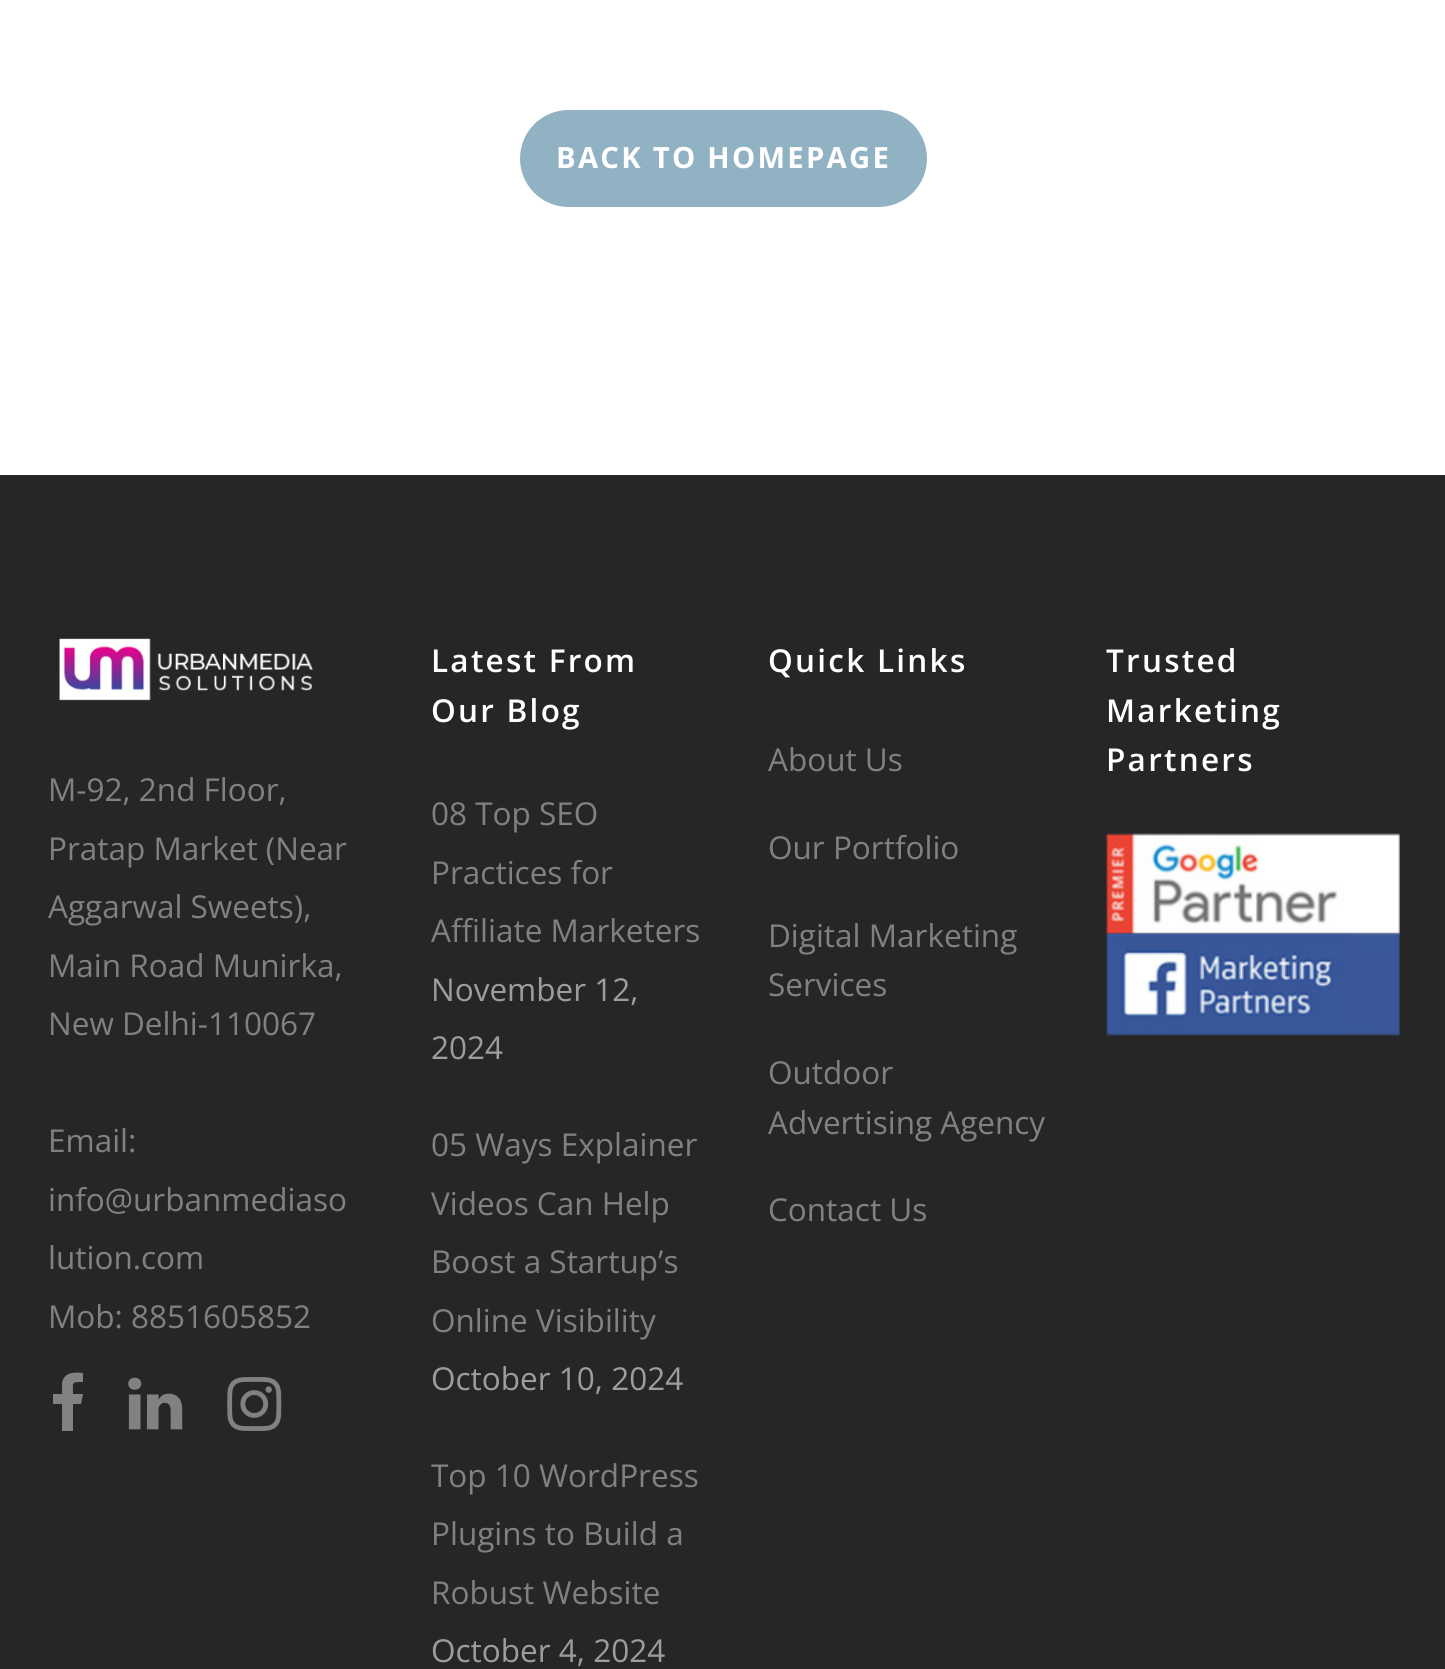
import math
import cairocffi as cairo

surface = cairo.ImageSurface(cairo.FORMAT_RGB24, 1445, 1669)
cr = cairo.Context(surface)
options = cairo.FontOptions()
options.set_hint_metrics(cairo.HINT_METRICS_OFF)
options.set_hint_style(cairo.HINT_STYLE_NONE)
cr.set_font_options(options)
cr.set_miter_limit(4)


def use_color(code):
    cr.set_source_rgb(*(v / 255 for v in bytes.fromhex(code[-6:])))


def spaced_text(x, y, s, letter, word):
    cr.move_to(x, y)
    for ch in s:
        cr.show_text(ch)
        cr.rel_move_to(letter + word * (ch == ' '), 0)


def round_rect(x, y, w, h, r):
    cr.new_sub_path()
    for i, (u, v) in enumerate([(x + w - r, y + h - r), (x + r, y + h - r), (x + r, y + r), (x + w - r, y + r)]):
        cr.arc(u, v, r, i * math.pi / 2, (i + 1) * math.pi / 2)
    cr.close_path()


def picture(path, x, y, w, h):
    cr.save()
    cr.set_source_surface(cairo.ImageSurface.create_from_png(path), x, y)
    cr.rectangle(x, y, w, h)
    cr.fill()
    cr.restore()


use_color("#ffffff")
cr.paint()
use_color("#91b2c3")
round_rect(522.5, 112.5, 402, 92, 46)
cr.fill_preserve()
cr.set_line_width(5)
cr.stroke()
cr.select_font_face("Open Sans", cairo.FONT_SLANT_NORMAL, cairo.FONT_WEIGHT_BOLD)
cr.set_font_size(29.25)
use_color("#ffffff")
spaced_text(556, 168, "BACK TO HOMEPAGE", 2.25, 0)
use_color("#262626")
cr.rectangle(0, 475, 1445, 1194)
cr.fill()
picture("img1.png", 59, 638, 254, 63)
cr.select_font_face("Open Sans")
cr.set_font_size(31.5)
use_color("#818181")
cr.move_to(48, 801)
cr.show_text("M-92, 2nd Floor,")
cr.move_to(48, 860)
cr.show_text("Pratap Market (Near")
cr.move_to(48, 918)
cr.show_text("Aggarwal Sweets),")
cr.move_to(48, 977)
cr.show_text("Main Road Munirka,")
cr.move_to(48, 1035)
cr.show_text("New Delhi-110067")
cr.move_to(48, 1152)
cr.show_text("Email:")
cr.move_to(48, 1211)
cr.show_text("info@urbanmediaso")
cr.move_to(48, 1269)
cr.show_text("lution.com")
cr.move_to(48, 1328)
cr.show_text("Mob: 8851605852")
cr.new_path()
cr.move_to(83, 1373)
cr.line_to(83, 1382)
cr.curve_to(71, 1382, 73, 1382, 73, 1394)
cr.line_to(83, 1394)
cr.line_to(81, 1404)
cr.line_to(73, 1404)
cr.line_to(73, 1431)
cr.line_to(62, 1431)
cr.line_to(62, 1404)
cr.line_to(53, 1404)
cr.line_to(53, 1394)
cr.line_to(62, 1394)
cr.line_to(62, 1383)
cr.curve_to(64, 1372, 74, 1372, 83, 1373)
cr.close_path()
cr.fill()
picture("img2.png", 128, 1377, 55, 53)
picture("img3.png", 227, 1377, 55, 54)
cr.select_font_face("Open Sans SemiBold")
use_color("#ffffff")
spaced_text(431, 672, "Latest From", 2.25, 0)
spaced_text(431, 722, "Our Blog", 2.25, 0)
cr.select_font_face("Open Sans")
use_color("#818181")
cr.move_to(431, 825)
cr.show_text("08 Top SEO")
cr.move_to(431, 884)
cr.show_text("Practices for")
cr.move_to(431, 942)
cr.show_text("Affiliate Marketers")
use_color("#9d9d9d")
cr.move_to(431, 1001)
cr.show_text("November 12,")
cr.move_to(431, 1059)
cr.show_text("2024")
use_color("#818181")
cr.move_to(431, 1156)
cr.show_text("05 Ways Explainer")
cr.move_to(431, 1215)
cr.show_text("Videos Can Help")
cr.move_to(431, 1273)
cr.show_text("Boost a Startup’s")
cr.move_to(431, 1332)
cr.show_text("Online Visibility")
use_color("#9d9d9d")
cr.move_to(431, 1390)
cr.show_text("October 10, 2024")
use_color("#818181")
cr.move_to(431, 1487)
cr.show_text("Top 10 WordPress")
cr.move_to(431, 1545)
cr.show_text("Plugins to Build a")
cr.move_to(431, 1604)
cr.show_text("Robust Website")
use_color("#9d9d9d")
cr.move_to(431, 1662)
cr.show_text("October 4, 2024")
cr.select_font_face("Open Sans SemiBold")
use_color("#ffffff")
spaced_text(768, 672, "Quick Links", 2.25, 0)
cr.select_font_face("Open Sans")
use_color("#818181")
cr.move_to(768, 771)
cr.show_text("About Us")
cr.move_to(768, 859)
cr.show_text("Our Portfolio")
cr.move_to(768, 947)
cr.show_text("Digital Marketing")
cr.move_to(768, 996)
cr.show_text("Services")
cr.move_to(768, 1084)
cr.show_text("Outdoor")
cr.move_to(768, 1134)
cr.show_text("Advertising Agency")
cr.move_to(768, 1221)
cr.show_text("Contact Us")
cr.select_font_face("Open Sans SemiBold")
use_color("#ffffff")
spaced_text(1106, 672, "Trusted", 2.25, 0)
spaced_text(1106, 722, "Marketing", 2.25, 0)
spaced_text(1106, 771, "Partners", 2.25, 0)
picture("img4.png", 1106, 833, 294, 102)
picture("img5.png", 1106, 933, 294, 103)
surface.write_to_png("result.png")
